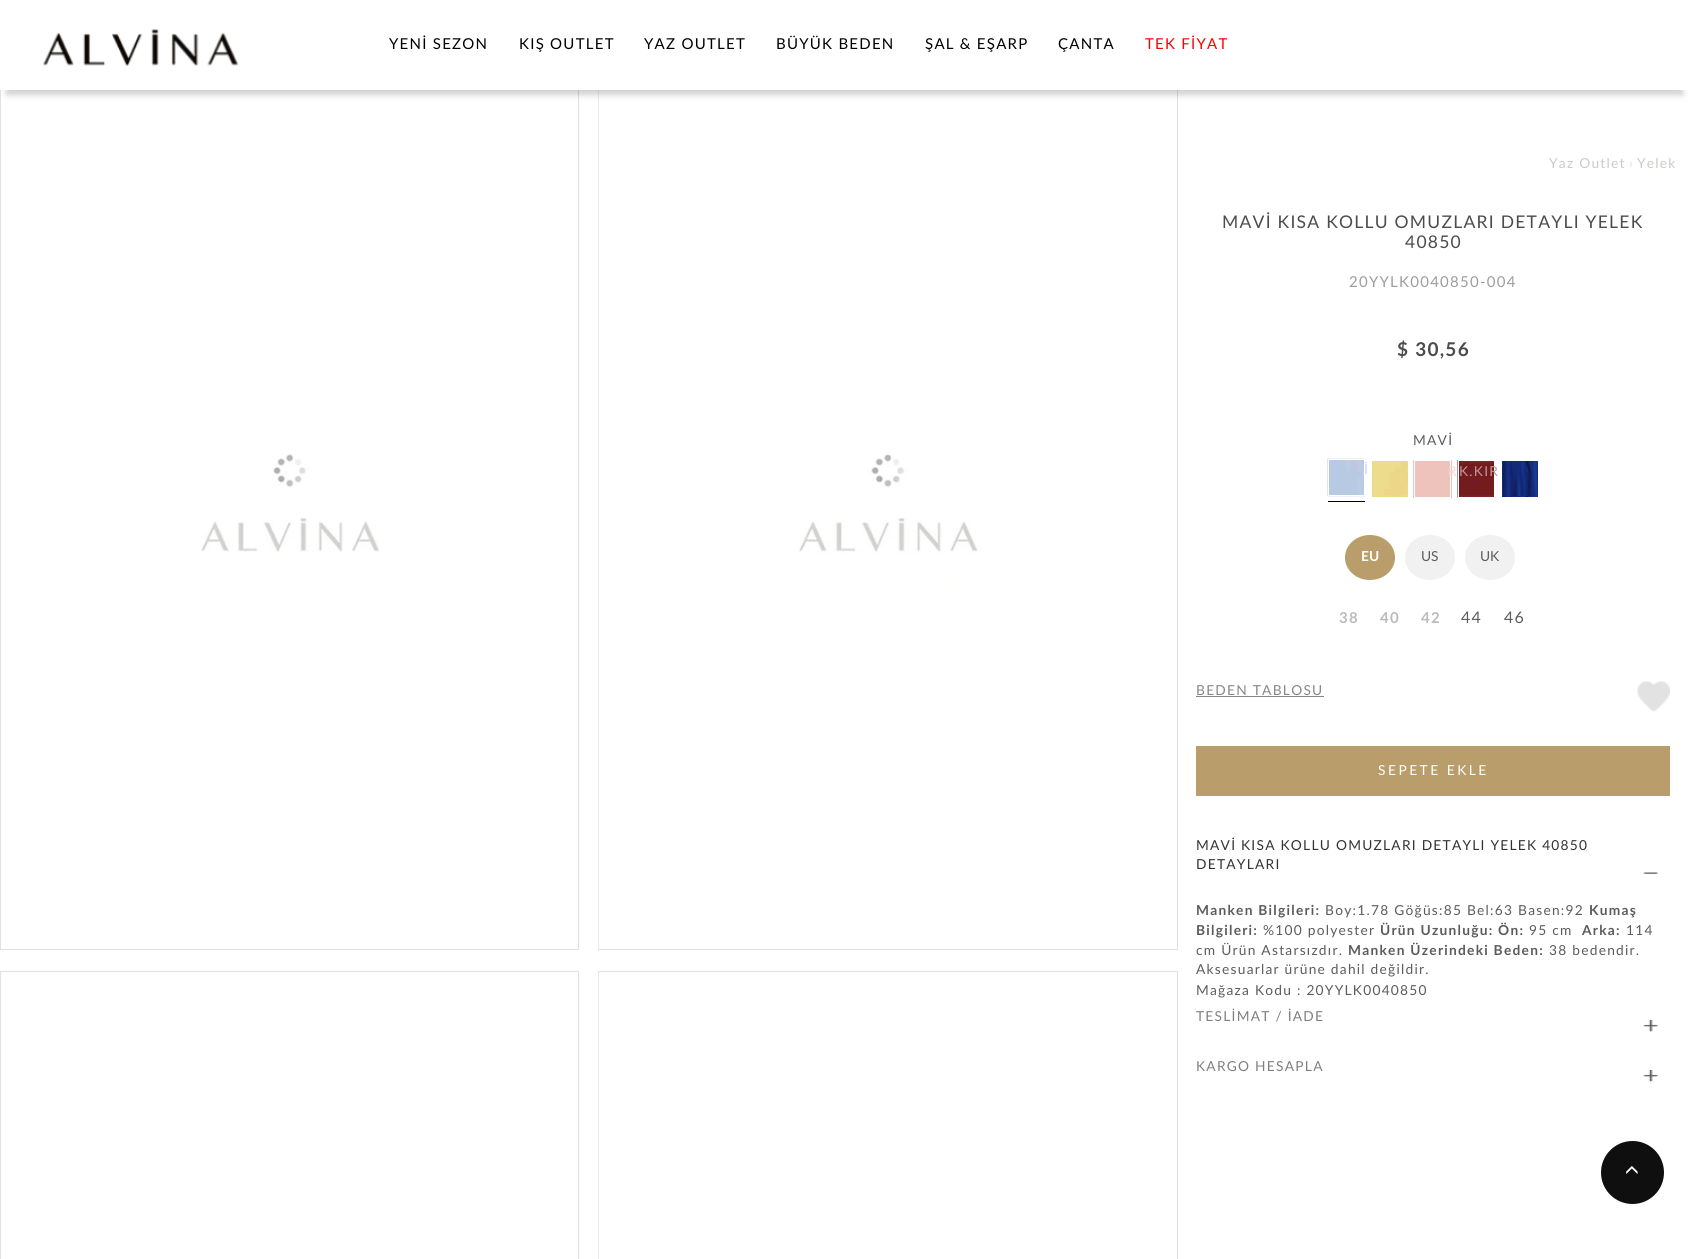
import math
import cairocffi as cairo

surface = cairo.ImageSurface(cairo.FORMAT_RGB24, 1688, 1259)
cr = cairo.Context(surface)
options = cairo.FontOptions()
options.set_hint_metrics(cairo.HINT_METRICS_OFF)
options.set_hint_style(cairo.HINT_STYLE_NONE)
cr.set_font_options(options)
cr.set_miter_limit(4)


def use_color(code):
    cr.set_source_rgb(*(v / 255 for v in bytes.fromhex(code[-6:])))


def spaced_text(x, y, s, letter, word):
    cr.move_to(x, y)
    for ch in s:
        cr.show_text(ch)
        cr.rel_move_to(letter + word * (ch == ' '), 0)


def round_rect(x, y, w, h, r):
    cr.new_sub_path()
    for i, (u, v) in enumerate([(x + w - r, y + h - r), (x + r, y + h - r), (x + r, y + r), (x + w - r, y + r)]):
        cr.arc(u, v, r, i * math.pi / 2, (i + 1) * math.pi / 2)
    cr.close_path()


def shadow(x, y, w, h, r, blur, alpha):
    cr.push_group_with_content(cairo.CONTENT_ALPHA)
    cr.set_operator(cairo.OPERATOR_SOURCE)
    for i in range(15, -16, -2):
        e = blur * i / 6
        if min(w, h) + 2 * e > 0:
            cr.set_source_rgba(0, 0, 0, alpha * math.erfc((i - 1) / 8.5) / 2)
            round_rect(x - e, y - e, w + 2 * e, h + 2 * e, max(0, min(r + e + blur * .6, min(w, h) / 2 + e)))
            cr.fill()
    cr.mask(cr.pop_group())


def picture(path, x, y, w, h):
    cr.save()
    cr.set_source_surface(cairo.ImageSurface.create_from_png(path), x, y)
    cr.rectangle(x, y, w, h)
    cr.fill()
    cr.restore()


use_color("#ffffff")
cr.paint()
cr.rectangle(0.5, 85.5, 578, 864)
use_color("#e1e1e1")
cr.set_line_width(1)
cr.stroke()
cr.rectangle(598.5, 85.5, 579, 864)
cr.stroke()
picture("img3.png", 598, 90, 380, 859)
use_color("#000000")
shadow(6, 18, 1677, 77, 0, 3, 0.18)
use_color("#ffffff")
cr.rectangle(0, 13, 1688, 77)
cr.fill()
picture("img1.png", 43, 29, 195, 37)
cr.select_font_face("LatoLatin")
cr.set_font_size(15)
use_color("#000000")
spaced_text(389, 49, "YENİ SEZON", 1.25, 0)
spaced_text(519, 49, "KIŞ OUTLET", 1.25, 0)
spaced_text(644, 49, "YAZ OUTLET", 1.25, 0)
spaced_text(776, 49, "BÜYÜK BEDEN", 1.25, 0)
spaced_text(925, 49, "ŞAL & EŞARP", 1.25, 0)
spaced_text(1058, 49, "ÇANTA", 1.25, 0)
use_color("#ff0000")
spaced_text(1145, 49, "TEK FİYAT", 1.25, 0)
picture("img2.png", 201, 454, 178, 98)
cr.rectangle(0.5, 971.5, 578, 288)
use_color("#e1e1e1")
cr.stroke()
cr.rectangle(598.5, 971.5, 579, 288)
cr.stroke()
use_color("#e9e9e9")
cr.rectangle(598, 973, 1, 286)
cr.fill()
cr.set_font_size(13.75)
use_color("#cfc9c9")
spaced_text(1549, 168, "Yaz Outlet", 1.25, 0)
use_color("#e1e1e1")
cr.move_to(1629, 168)
cr.show_text("›")
use_color("#cfc9c9")
spaced_text(1637, 168, "Yelek", 1.25, 0)
cr.set_font_size(17.5)
use_color("#4c4c4c")
spaced_text(1222, 228, "MAVİ KISA KOLLU OMUZLARI DETAYLI YELEK", 1.25, 0)
spaced_text(1405, 248, "40850", 1.25, 0)
cr.set_font_size(15)
use_color("#9d9d9d")
spaced_text(1349, 287, "20YYLK0040850-004", 1.25, 0)
cr.select_font_face("LatoLatin", cairo.FONT_SLANT_NORMAL, cairo.FONT_WEIGHT_BOLD)
cr.set_font_size(19)
use_color("#4c4c4c")
spaced_text(1397, 356, "$ 30,56", 1.25, 0)
cr.select_font_face("LatoLatin")
cr.set_font_size(13.75)
use_color("#5c5c5c")
spaced_text(1413, 445, "MAVİ", 1.25, 0)
use_color("#000000")
cr.rectangle(1328, 501, 37, 1)
cr.fill()
picture("img4.png", 1327, 458, 38, 39)
cr.rectangle(1328.5, 459.5, 36, 36)
use_color("#ffffff")
cr.stroke()
use_color("#c5d3e9")
spaced_text(1364, 474, "İ", 1.25, 0)
picture("img5.png", 1372, 461, 36, 36)
use_color("#eec3bc")
cr.rectangle(1413, 460, 39, 38)
cr.fill()
cr.rectangle(1414.5, 460.5, 36, 37)
use_color("#ffffff")
cr.stroke()
use_color("#f3d6d2")
spaced_text(1448, 476, "R", 1.25, 0)
picture("img6.png", 1457, 460, 37, 38)
cr.rectangle(1458.5, 460.5, 36, 37)
use_color("#ffffff")
cr.stroke()
use_color("#c09899")
spaced_text(1459, 476, "K.KIR", 1.25, 0)
picture("img7.png", 1502, 461, 36, 36)
use_color("#b99d6b")
cr.new_path()
cr.move_to(1370, 535)
cr.curve_to(1384, 535, 1395, 545, 1395, 557.5)
cr.curve_to(1395, 570, 1384, 580, 1370, 580)
cr.curve_to(1356, 580, 1345, 570, 1345, 557.5)
cr.curve_to(1345, 545, 1356, 535, 1370, 535)
cr.close_path()
cr.fill()
cr.select_font_face("LatoLatin", cairo.FONT_SLANT_NORMAL, cairo.FONT_WEIGHT_BOLD)
use_color("#ffffff")
cr.move_to(1361, 561)
cr.show_text("EU")
use_color("#f1f1f1")
cr.new_path()
cr.move_to(1430, 535)
cr.curve_to(1444, 535, 1455, 545, 1455, 557.5)
cr.curve_to(1455, 570, 1444, 580, 1430, 580)
cr.curve_to(1416, 580, 1405, 570, 1405, 557.5)
cr.curve_to(1405, 545, 1416, 535, 1430, 535)
cr.close_path()
cr.fill()
cr.select_font_face("LatoLatin")
use_color("#5c5c5c")
cr.move_to(1421, 561)
cr.show_text("US")
use_color("#f1f1f1")
cr.new_path()
cr.move_to(1490, 535)
cr.curve_to(1504, 535, 1515, 545, 1515, 557.5)
cr.curve_to(1515, 570, 1504, 580, 1490, 580)
cr.curve_to(1476, 580, 1465, 570, 1465, 557.5)
cr.curve_to(1465, 545, 1476, 535, 1490, 535)
cr.close_path()
cr.fill()
use_color("#5c5c5c")
cr.move_to(1480, 561)
cr.show_text("UK")
cr.select_font_face("LatoLatin", cairo.FONT_SLANT_NORMAL, cairo.FONT_WEIGHT_BOLD)
cr.set_font_size(15)
use_color("#bbbbbb")
spaced_text(1339, 623, "38", 1.25, 0)
spaced_text(1380, 623, "40", 1.25, 0)
spaced_text(1421, 623, "42", 1.25, 0)
cr.select_font_face("LatoLatin")
cr.set_font_size(16)
use_color("#5c5c5c")
spaced_text(1461, 623, "44", 1.25, 0)
spaced_text(1504, 623, "46", 1.25, 0)
cr.set_font_size(13.75)
use_color("#878787")
spaced_text(1196, 695, "BEDEN TABLOSU", 1.25, 0)
cr.rectangle(1196, 696, 128, 1)
cr.fill()
picture("img8.png", 1637, 681, 33, 31)
use_color("#b99d6b")
cr.rectangle(1196, 746, 474, 50)
cr.fill()
use_color("#ffffff")
spaced_text(1378, 775, "SEPETE EKLE", 2.5, 0)
use_color("#333333")
spaced_text(1196, 850, "MAVİ KISA KOLLU OMUZLARI DETAYLI YELEK 40850", 1.25, 0)
spaced_text(1196, 869, "DETAYLARI", 1.25, 0)
picture("img9.png", 1643, 872, 15, 2)
cr.select_font_face("LatoLatin", cairo.FONT_SLANT_NORMAL, cairo.FONT_WEIGHT_BOLD)
use_color("#5c5c5c")
spaced_text(1196, 915, "Manken Bilgileri:", 1.25, 0)
cr.select_font_face("LatoLatin")
spaced_text(1325, 915, "Boy:1.78 Göğüs:85 Bel:63 Basen:92", 1.25, 0)
cr.select_font_face("LatoLatin", cairo.FONT_SLANT_NORMAL, cairo.FONT_WEIGHT_BOLD)
spaced_text(1589, 915, "Kumaş", 1.25, 0)
spaced_text(1196, 935, "Bilgileri:", 1.25, 0)
cr.select_font_face("LatoLatin")
spaced_text(1263, 935, "%100 polyester", 1.25, 0)
cr.select_font_face("LatoLatin", cairo.FONT_SLANT_NORMAL, cairo.FONT_WEIGHT_BOLD)
spaced_text(1380, 935, "Ürün Uzunluğu: Ön:", 1.25, 0)
cr.select_font_face("LatoLatin")
spaced_text(1529, 935, "95 cm", 1.25, 0)
cr.select_font_face("LatoLatin", cairo.FONT_SLANT_NORMAL, cairo.FONT_WEIGHT_BOLD)
spaced_text(1582, 935, "Arka:", 1.25, 0)
cr.select_font_face("LatoLatin")
spaced_text(1626, 935, "114", 1.25, 0)
spaced_text(1196, 955, "cm Ürün Astarsızdır.", 1.25, 0)
cr.select_font_face("LatoLatin", cairo.FONT_SLANT_NORMAL, cairo.FONT_WEIGHT_BOLD)
spaced_text(1348, 955, "Manken Üzerindeki Beden:", 1.25, 0)
cr.select_font_face("LatoLatin")
spaced_text(1549, 955, "38 bedendir.", 1.25, 0)
spaced_text(1196, 974, "Aksesuarlar ürüne dahil değildir.", 1.25, 0)
spaced_text(1196, 995, "Mağaza Kodu : 20YYLK0040850", 1.25, 0)
use_color("#808080")
spaced_text(1196, 1021, "TESLİMAT / İADE", 1.25, 0)
picture("img10.png", 1643, 1020, 15, 12)
spaced_text(1196, 1071, "KARGO HESAPLA", 1.25, 0)
picture("img10.png", 1643, 1070, 15, 12)
use_color("#0f0f0f")
cr.arc(1632.5, 1172.5, 31.5, 0, 2 * math.pi)
cr.fill()
picture("img11.png", 1626, 1166, 12, 8)
surface.write_to_png("result.png")
